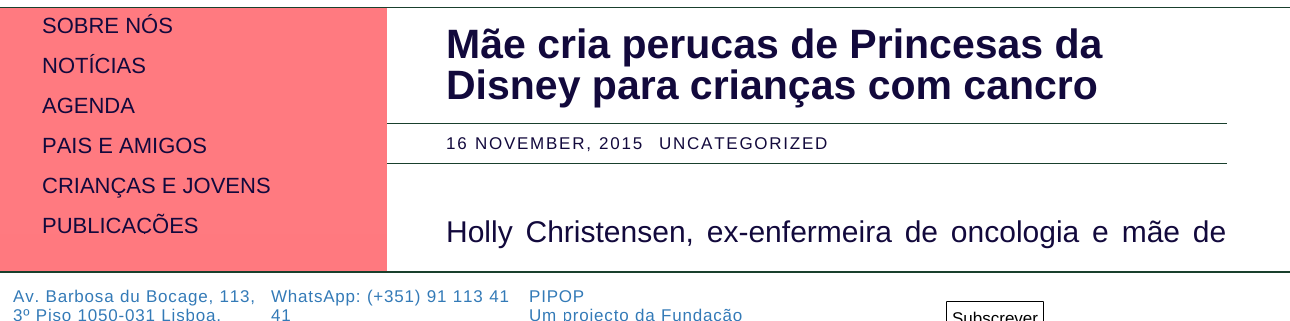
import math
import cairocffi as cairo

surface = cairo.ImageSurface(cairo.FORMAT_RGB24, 1290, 321)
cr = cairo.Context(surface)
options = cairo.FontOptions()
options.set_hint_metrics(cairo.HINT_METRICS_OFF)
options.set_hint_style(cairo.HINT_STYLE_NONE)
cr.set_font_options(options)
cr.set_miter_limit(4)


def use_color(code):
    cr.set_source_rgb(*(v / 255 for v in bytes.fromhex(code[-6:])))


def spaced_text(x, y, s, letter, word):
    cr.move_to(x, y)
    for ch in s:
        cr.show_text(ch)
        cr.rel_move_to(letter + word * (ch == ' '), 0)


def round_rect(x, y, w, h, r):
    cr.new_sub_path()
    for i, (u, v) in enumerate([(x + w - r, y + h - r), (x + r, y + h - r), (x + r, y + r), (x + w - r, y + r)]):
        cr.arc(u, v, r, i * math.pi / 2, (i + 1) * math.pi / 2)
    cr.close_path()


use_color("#ffffff")
cr.paint()
use_color("#19402d")
cr.rectangle(0, 7, 1290, 1)
cr.fill()
use_color("#ff797f")
cr.rectangle(0, 234, 387, 37)
cr.fill()
use_color("#ff7a80")
cr.rectangle(0, 8, 387, 226)
cr.fill()
cr.select_font_face("Liberation Sans")
cr.set_font_size(22)
use_color("#12093c")
cr.move_to(42, 33)
cr.show_text("SOBRE NÓS")
cr.move_to(42, 73)
cr.show_text("NOTÍCIAS")
cr.move_to(42, 113)
cr.show_text("AGENDA")
cr.move_to(42, 153)
cr.show_text("PAIS E AMIGOS")
cr.move_to(42, 193)
cr.show_text("CRIANÇAS E JOVENS")
cr.save()
cr.rectangle(0, 3, 387, 231)
cr.clip()
cr.move_to(42, 233)
cr.show_text("PUBLICAÇÕES")
cr.restore()
cr.select_font_face("Liberation Sans", cairo.FONT_SLANT_NORMAL, cairo.FONT_WEIGHT_BOLD)
cr.set_font_size(41)
cr.move_to(446, 58)
cr.show_text("Mãe cria perucas de Princesas da")
cr.move_to(446, 99)
cr.show_text("Disney para crianças com cancro")
use_color("#19402d")
cr.rectangle(387, 123, 840, 1)
cr.fill()
cr.rectangle(387, 163, 840, 1)
cr.fill()
cr.select_font_face("Liberation Sans")
cr.set_font_size(17)
use_color("#12093c")
spaced_text(446, 149, "16 NOVEMBER, 2015", 1.75, 0)
spaced_text(659, 149, "UNCATEGORIZED", 1.75, 0)
cr.set_font_size(30)
spaced_text(446, 242, "Holly Christensen, ex-enfermeira de oncologia e mãe de", 0, 4.5)
use_color("#19402d")
cr.rectangle(0, 271, 1290, 2)
cr.fill()
cr.set_font_size(17)
use_color("#337ab7")
spaced_text(13, 302, "Av. Barbosa du Bocage, 113,", 0.8, 0)
spaced_text(13, 321, "3º Piso 1050-031 Lisboa,", 0.8, 0)
spaced_text(271, 302, "WhatsApp: (+351) 91 113 41", 0.8, 0)
spaced_text(271, 321, "41", 0.8, 0)
spaced_text(529, 302, "PIPOP", 0.8, 0)
spaced_text(529, 321, "Um projecto da Fundação", 0.8, 0)
round_rect(946.5, 301.5, 97, 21, 0.5)
use_color("#000000")
cr.set_line_width(1)
cr.stroke()
cr.move_to(952, 324)
cr.show_text("Subscrever")
surface.write_to_png("result.png")
